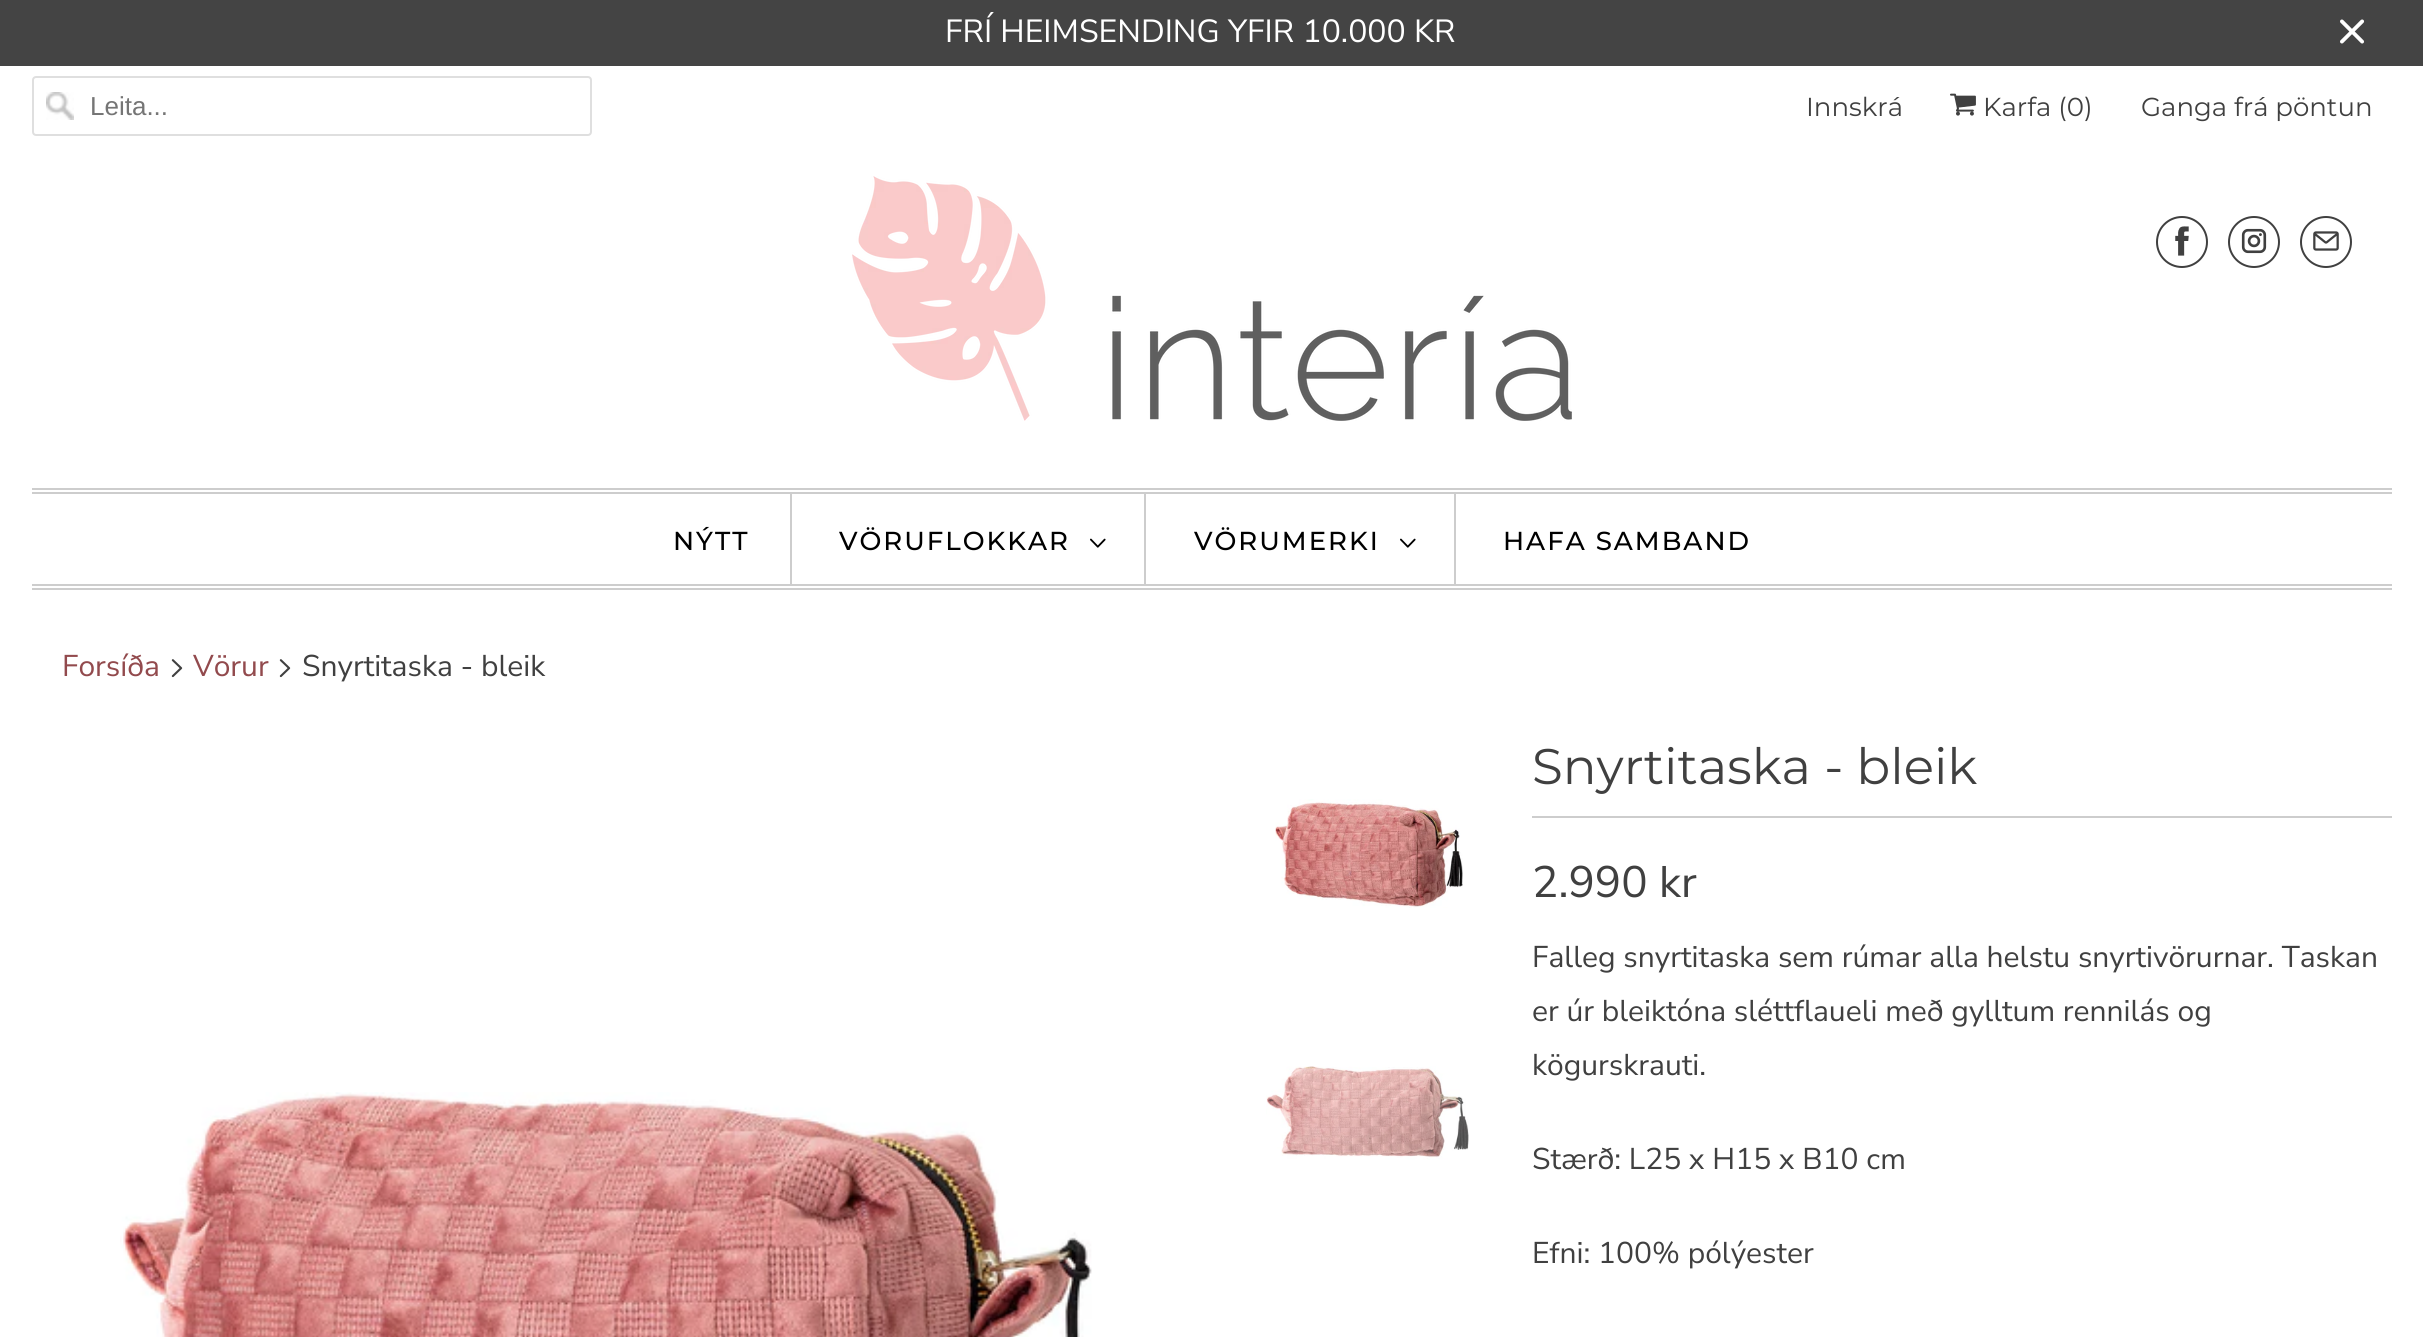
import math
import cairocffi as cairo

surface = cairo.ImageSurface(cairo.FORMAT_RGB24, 2423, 1337)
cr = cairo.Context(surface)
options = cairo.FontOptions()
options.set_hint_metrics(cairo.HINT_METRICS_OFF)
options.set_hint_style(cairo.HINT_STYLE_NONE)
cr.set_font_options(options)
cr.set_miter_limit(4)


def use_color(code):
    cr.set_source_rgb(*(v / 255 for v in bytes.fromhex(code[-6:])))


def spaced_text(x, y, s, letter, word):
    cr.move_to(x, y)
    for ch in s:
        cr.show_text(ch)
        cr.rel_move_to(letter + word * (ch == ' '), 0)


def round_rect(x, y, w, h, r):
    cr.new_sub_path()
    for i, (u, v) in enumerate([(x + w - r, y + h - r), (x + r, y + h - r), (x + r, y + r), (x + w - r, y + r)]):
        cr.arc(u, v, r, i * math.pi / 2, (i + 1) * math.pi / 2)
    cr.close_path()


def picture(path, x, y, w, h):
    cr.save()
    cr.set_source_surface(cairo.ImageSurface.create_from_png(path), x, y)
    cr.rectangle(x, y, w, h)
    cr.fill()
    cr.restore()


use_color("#ffffff")
cr.paint()
use_color("#444444")
cr.rectangle(0, 0, 2423, 66)
cr.fill()
cr.select_font_face("Nunito Sans")
cr.set_font_size(32)
use_color("#ffffff")
cr.move_to(945, 42)
cr.show_text("FRÍ HEIMSENDING YFIR 10.000 KR")
picture("img1.png", 2340, 19, 25, 25)
picture("img2.png", 46, 92, 28, 28)
round_rect(33, 77, 558, 58, 3)
use_color("#dfdfdf")
cr.stroke()
cr.select_font_face("Liberation Sans")
cr.set_font_size(26)
use_color("#757575")
cr.move_to(90, 115)
cr.show_text("Leita...")
cr.select_font_face("Montserrat")
use_color("#404040")
cr.move_to(1806, 116)
cr.show_text("Innskrá")
picture("img3.png", 1950, 93, 26, 23)
cr.move_to(1983, 116)
cr.show_text("Karfa (0)")
cr.move_to(2141, 116)
cr.show_text("Ganga frá pöntun")
picture("img4.png", 852, 176, 720, 245)
cr.arc(2182, 242, 25, 0, 2 * math.pi)
cr.stroke()
picture("img5.png", 2175, 226, 14, 30)
cr.arc(2254, 242, 25, 0, 2 * math.pi)
cr.stroke()
picture("img6.png", 2241, 228, 26, 26)
cr.arc(2326, 242, 25, 0, 2 * math.pi)
cr.stroke()
picture("img7.png", 2313, 231, 26, 20)
use_color("#cdcdcd")
cr.rectangle(32, 488, 2360, 2)
cr.fill()
cr.rectangle(32, 492, 2360, 2)
cr.fill()
cr.rectangle(32, 584, 2360, 2)
cr.fill()
cr.rectangle(32, 588, 2360, 2)
cr.fill()
cr.rectangle(790, 494, 2, 90)
cr.fill()
cr.select_font_face("Montserrat Medium")
use_color("#000000")
spaced_text(673, 550, "NÝTT", 2, 0)
use_color("#cdcdcd")
cr.rectangle(1144, 494, 2, 90)
cr.fill()
use_color("#000000")
spaced_text(839, 550, "VÖRUFLOKKAR", 2, 0)
picture("img8.png", 1090, 538, 16, 10)
use_color("#cdcdcd")
cr.rectangle(1454, 494, 2, 90)
cr.fill()
use_color("#000000")
spaced_text(1194, 550, "VÖRUMERKI", 2, 0)
picture("img8.png", 1400, 538, 16, 10)
spaced_text(1503, 550, "HAFA SAMBAND", 2, 0)
cr.select_font_face("Nunito Sans")
cr.set_font_size(30)
use_color("#924a4d")
cr.move_to(62, 676)
cr.show_text("Forsíða")
picture("img9.png", 171, 659, 12, 19)
cr.move_to(193, 676)
cr.show_text("Vörur")
picture("img9.png", 279, 659, 12, 19)
use_color("#404040")
cr.move_to(302, 676)
cr.show_text("Snyrtitaska - bleik")
picture("img10.png", 1275, 799, 188, 109)
picture("img11.png", 1266, 1066, 203, 94)
picture("img12.png", 120, 1092, 972, 245)
use_color("#cdcdcd")
cr.rectangle(1532, 816, 860, 2)
cr.fill()
cr.select_font_face("Montserrat")
cr.set_font_size(50)
use_color("#404040")
cr.move_to(1532, 784)
cr.show_text("Snyrtitaska - bleik")
cr.select_font_face("Nunito Sans")
cr.set_font_size(44)
cr.move_to(1532, 897)
cr.show_text("2.990 kr")
cr.set_font_size(30)
cr.move_to(1532, 967)
cr.show_text("Falleg snyrtitaska sem rúmar alla helstu snyrtivörurnar. Taskan")
cr.move_to(1532, 1021)
cr.show_text("er úr bleiktóna sléttflaueli með gylltum rennilás og")
cr.move_to(1532, 1075)
cr.show_text("kögurskrauti.")
cr.move_to(1532, 1169)
cr.show_text("Stærð: L25 x H15 x B10 cm")
cr.move_to(1532, 1263)
cr.show_text("Efni: 100% pólýester")
surface.write_to_png("result.png")
